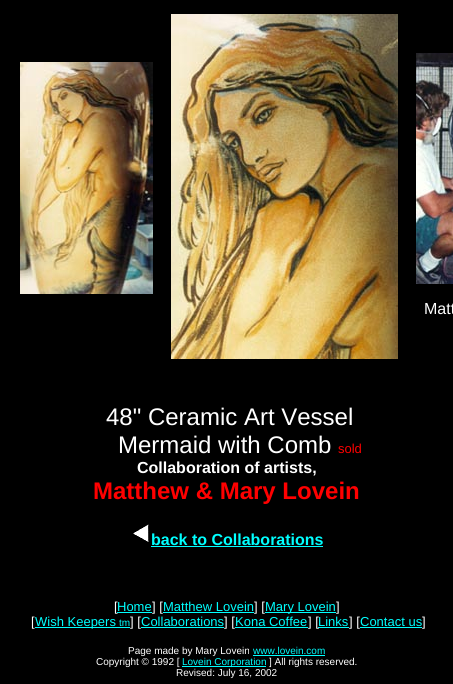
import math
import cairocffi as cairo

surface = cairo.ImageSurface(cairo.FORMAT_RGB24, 453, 684)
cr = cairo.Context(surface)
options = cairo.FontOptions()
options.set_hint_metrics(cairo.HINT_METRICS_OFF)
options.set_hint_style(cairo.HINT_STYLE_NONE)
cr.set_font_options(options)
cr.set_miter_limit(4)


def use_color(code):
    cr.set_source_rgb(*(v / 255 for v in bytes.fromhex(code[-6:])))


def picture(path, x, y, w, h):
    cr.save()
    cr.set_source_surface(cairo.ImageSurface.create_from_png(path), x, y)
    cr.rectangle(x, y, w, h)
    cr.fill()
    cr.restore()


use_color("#000000")
cr.paint()
picture("img1.png", 20, 62, 133, 232)
picture("img2.png", 171, 14, 227, 345)
picture("img3.png", 416, 53, 37, 231)
cr.select_font_face("Liberation Sans")
cr.set_font_size(16)
use_color("#ffffff")
cr.move_to(424, 314)
cr.show_text("Matt")
cr.set_font_size(24)
cr.move_to(106, 425)
cr.show_text("48\" Ceramic Art Vessel")
cr.move_to(118, 453)
cr.show_text("Mermaid with Comb")
cr.set_font_size(13)
use_color("#ff0000")
cr.move_to(338, 453)
cr.show_text("sold")
cr.select_font_face("Liberation Sans", cairo.FONT_SLANT_NORMAL, cairo.FONT_WEIGHT_BOLD)
cr.set_font_size(16)
use_color("#ffffff")
cr.move_to(137, 473)
cr.show_text("Collaboration of artists,")
cr.set_font_size(24)
use_color("#ff0000")
cr.move_to(93, 499)
cr.show_text("Matthew & Mary Lovein")
picture("img4.png", 133, 524, 16, 18)
cr.set_font_size(16)
use_color("#00ffff")
cr.move_to(151, 545)
cr.show_text("back to Collaborations")
cr.rectangle(151, 546, 172, 1)
cr.fill()
cr.select_font_face("Liberation Sans")
cr.set_font_size(13)
use_color("#ffffff")
cr.move_to(114, 611)
cr.show_text("[")
use_color("#00ffff")
cr.rectangle(117, 612, 35, 1)
cr.fill()
cr.move_to(117, 611)
cr.show_text("Home")
use_color("#ffffff")
cr.move_to(152, 611)
cr.show_text("] [")
use_color("#00ffff")
cr.rectangle(163, 612, 91, 1)
cr.fill()
cr.move_to(163, 611)
cr.show_text("Matthew Lovein")
use_color("#ffffff")
cr.move_to(254, 611)
cr.show_text("] [")
use_color("#00ffff")
cr.rectangle(265, 612, 71, 1)
cr.fill()
cr.move_to(265, 611)
cr.show_text("Mary Lovein")
use_color("#ffffff")
cr.move_to(336, 611)
cr.show_text("]")
cr.move_to(31, 626)
cr.show_text("[")
use_color("#00ffff")
cr.rectangle(35, 627, 95, 1)
cr.fill()
cr.move_to(35, 626)
cr.show_text("Wish Keepers")
cr.set_font_size(10)
cr.move_to(119, 626)
cr.show_text("tm")
cr.set_font_size(13)
use_color("#ffffff")
cr.move_to(130, 626)
cr.show_text("] [")
use_color("#00ffff")
cr.rectangle(141, 627, 83, 1)
cr.fill()
cr.move_to(141, 626)
cr.show_text("Collaborations")
use_color("#ffffff")
cr.move_to(224, 626)
cr.show_text("] [")
use_color("#00ffff")
cr.rectangle(235, 627, 73, 1)
cr.fill()
cr.move_to(235, 626)
cr.show_text("Kona Coffee")
use_color("#ffffff")
cr.move_to(308, 626)
cr.show_text("] [")
use_color("#00ffff")
cr.rectangle(318, 627, 31, 1)
cr.fill()
cr.move_to(318, 626)
cr.show_text("Links")
use_color("#ffffff")
cr.move_to(349, 626)
cr.show_text("] [")
use_color("#00ffff")
cr.rectangle(360, 627, 62, 1)
cr.fill()
cr.move_to(360, 626)
cr.show_text("Contact us")
use_color("#ffffff")
cr.move_to(422, 626)
cr.show_text("]")
cr.set_font_size(10)
cr.move_to(128, 654)
cr.show_text("Page made by Mary Lovein")
use_color("#00ffff")
cr.move_to(253, 654)
cr.show_text("www.lovein.com")
cr.rectangle(253, 655, 72, 1)
cr.fill()
use_color("#ffffff")
cr.move_to(96, 665)
cr.show_text("Copyright © 1992 [")
use_color("#00ffff")
cr.rectangle(182, 666, 84, 1)
cr.fill()
cr.move_to(182, 665)
cr.show_text("Lovein Corporation")
use_color("#ffffff")
cr.move_to(269, 665)
cr.show_text("] All rights reserved.")
cr.move_to(176, 676)
cr.show_text("Revised: July 16, 2002")
surface.write_to_png("result.png")
